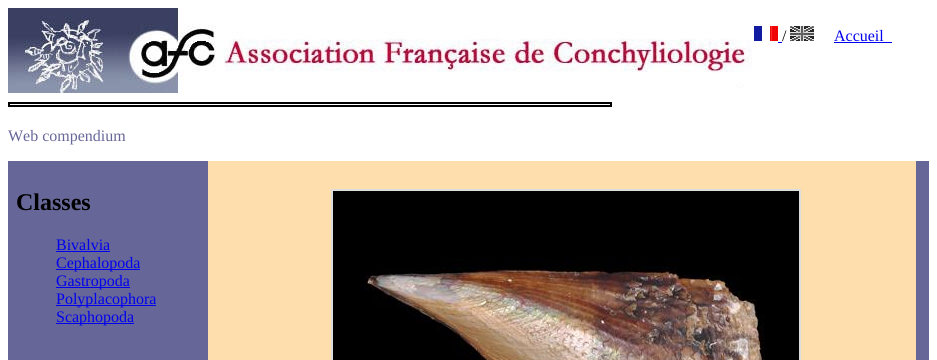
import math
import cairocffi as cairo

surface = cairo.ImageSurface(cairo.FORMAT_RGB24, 937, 360)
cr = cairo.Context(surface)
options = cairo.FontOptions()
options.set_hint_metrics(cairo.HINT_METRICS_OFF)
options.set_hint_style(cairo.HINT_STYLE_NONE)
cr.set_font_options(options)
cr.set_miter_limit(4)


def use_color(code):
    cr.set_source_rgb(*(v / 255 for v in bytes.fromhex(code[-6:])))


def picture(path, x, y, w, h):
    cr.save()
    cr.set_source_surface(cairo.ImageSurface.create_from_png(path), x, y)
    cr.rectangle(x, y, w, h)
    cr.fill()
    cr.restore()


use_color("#ffffff")
cr.paint()
picture("img1.png", 8, 8, 744, 85)
picture("img2.png", 754, 26, 24, 15)
cr.select_font_face("Liberation Serif")
cr.set_font_size(16)
use_color("#000000")
cr.move_to(782, 41)
cr.show_text("/")
picture("img3.png", 790, 26, 24, 15)
use_color("#0000ee")
cr.move_to(834, 41)
cr.show_text("Accueil")
cr.rectangle(834, 42, 58, 1)
cr.fill()
cr.rectangle(778, 42, 4, 1)
cr.fill()
cr.rectangle(9, 103, 602, 3)
use_color("#000000")
cr.stroke()
use_color("#666699")
cr.move_to(8, 141)
cr.show_text("Web compendium")
cr.rectangle(8, 161, 921, 199)
cr.fill()
cr.select_font_face("Liberation Serif", cairo.FONT_SLANT_NORMAL, cairo.FONT_WEIGHT_BOLD)
cr.set_font_size(24)
use_color("#000000")
cr.move_to(16, 210)
cr.show_text("Classes")
cr.select_font_face("Liberation Serif")
cr.set_font_size(16)
use_color("#0000ee")
cr.move_to(56, 250)
cr.show_text("Bivalvia")
cr.rectangle(56, 251, 54, 1)
cr.fill()
cr.rectangle(56, 269, 84, 1)
cr.fill()
cr.move_to(56, 268)
cr.show_text("Cephalopoda")
cr.rectangle(56, 287, 74, 1)
cr.fill()
cr.move_to(56, 286)
cr.show_text("Gastropoda")
cr.rectangle(56, 305, 100, 1)
cr.fill()
cr.move_to(56, 304)
cr.show_text("Polyplacophora")
cr.rectangle(56, 323, 78, 1)
cr.fill()
cr.move_to(56, 322)
cr.show_text("Scaphopoda")
use_color("#ffdead")
cr.rectangle(208, 161, 708, 199)
cr.fill()
use_color("#000000")
cr.rectangle(332, 190, 468, 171)
cr.fill_preserve()
use_color("#dddddd")
cr.stroke()
picture("img4.png", 363, 259, 402, 101)
surface.write_to_png("result.png")
